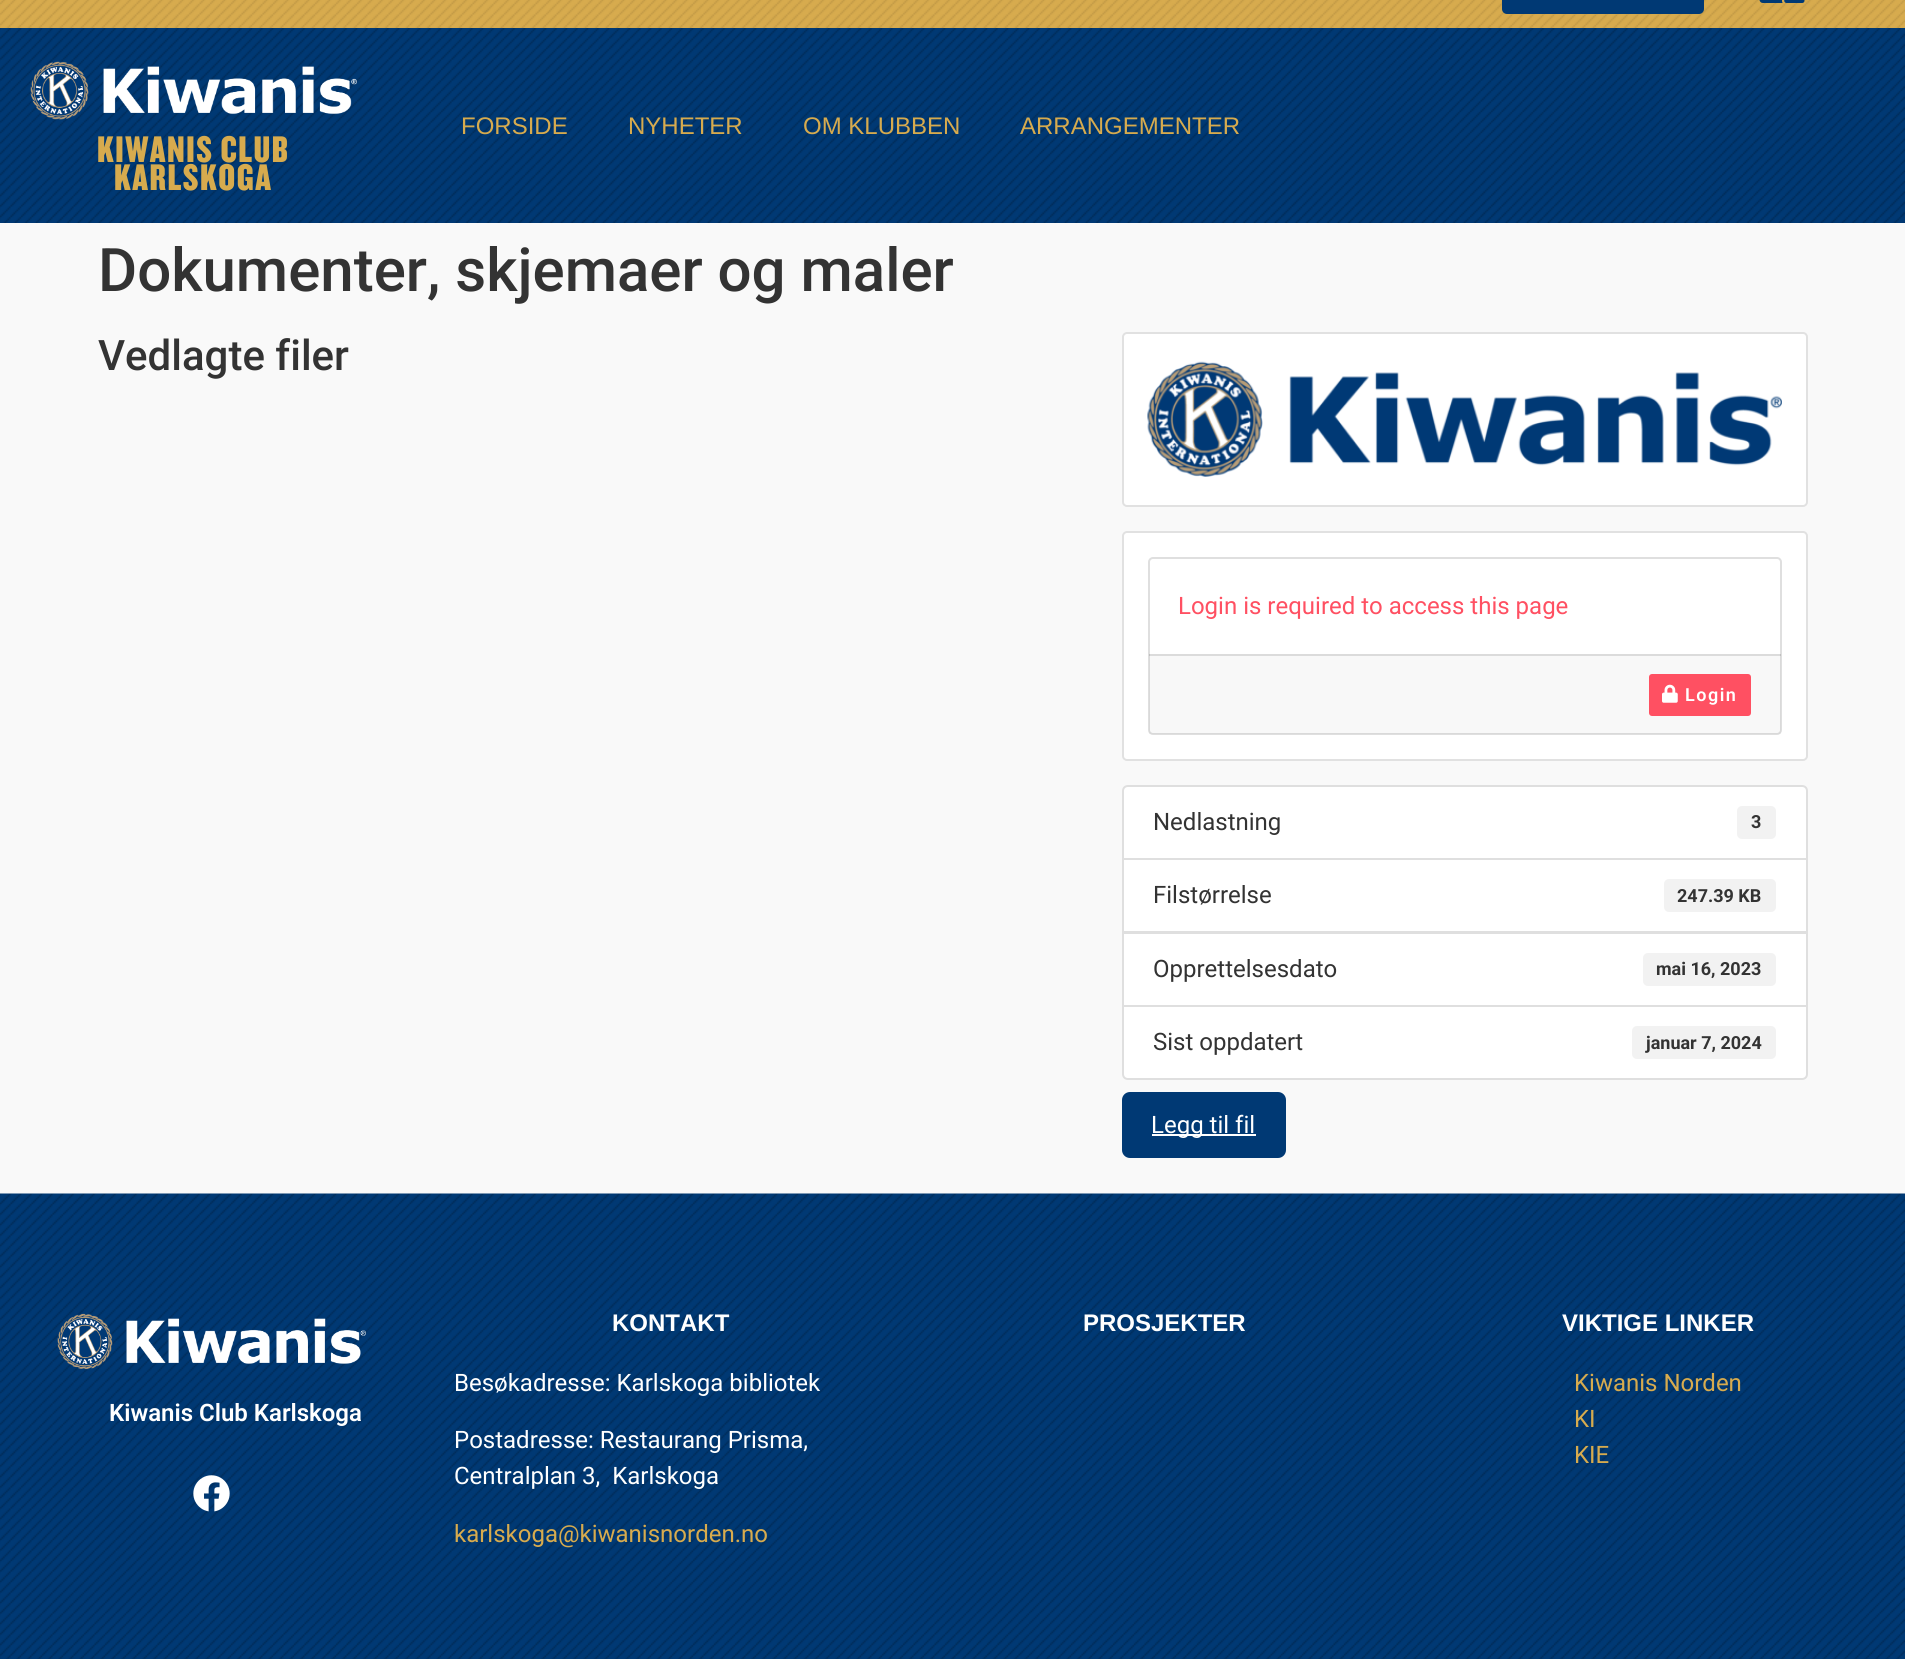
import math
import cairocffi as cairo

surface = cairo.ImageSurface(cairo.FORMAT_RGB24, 1905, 1659)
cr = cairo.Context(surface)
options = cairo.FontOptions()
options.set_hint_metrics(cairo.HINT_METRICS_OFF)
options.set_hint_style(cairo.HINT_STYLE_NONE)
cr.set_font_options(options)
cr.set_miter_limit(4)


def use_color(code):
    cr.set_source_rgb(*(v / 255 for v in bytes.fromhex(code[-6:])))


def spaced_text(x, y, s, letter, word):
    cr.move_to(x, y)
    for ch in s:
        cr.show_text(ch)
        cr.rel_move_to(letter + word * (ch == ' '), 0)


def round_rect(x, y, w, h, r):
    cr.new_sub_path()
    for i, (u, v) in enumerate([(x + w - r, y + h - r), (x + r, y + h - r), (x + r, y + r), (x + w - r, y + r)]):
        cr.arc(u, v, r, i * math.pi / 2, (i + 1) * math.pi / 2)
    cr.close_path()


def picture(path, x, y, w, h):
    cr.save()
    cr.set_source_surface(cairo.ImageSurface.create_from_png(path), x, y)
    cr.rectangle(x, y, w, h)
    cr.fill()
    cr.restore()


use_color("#f9f9f9")
cr.paint()
picture("img1.png", 0, 0, 1905, 28)
use_color("#003974")
round_rect(1502, -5, 202, 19, 5)
cr.fill()
picture("img2.png", 1759, 0, 46, 3)
picture("img3.png", 0, 28, 1905, 195)
cr.select_font_face("Liberation Sans")
cr.set_font_size(24)
use_color("#d7ab4e")
cr.move_to(461, 134)
cr.show_text("FORSIDE")
cr.move_to(628, 134)
cr.show_text("NYHETER")
cr.move_to(803, 134)
cr.show_text("OM KLUBBEN")
cr.move_to(1020, 134)
cr.show_text("ARRANGEMENTER")
picture("img4.png", 30, 61, 327, 59)
cr.select_font_face("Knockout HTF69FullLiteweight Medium")
cr.set_font_size(38.5)
spaced_text(97, 162, "KIWANIS CLUB", 1.5, 0)
spaced_text(114, 190, "KARLSKOGA", 1.5, 0)
cr.select_font_face("Roboto Medium")
cr.set_font_size(60)
use_color("#333333")
cr.move_to(98, 291)
cr.show_text("Dokumenter, skjemaer og maler")
cr.set_font_size(42)
cr.move_to(98, 370)
cr.show_text("Vedlagte filer")
use_color("#ffffff")
round_rect(1122, 332, 686, 175, 5)
cr.fill()
round_rect(1123, 333, 684, 173, 4)
cr.set_source_rgba(0, 0, 0, 0.12)
cr.stroke()
picture("img5.png", 1147, 361, 635, 116)
use_color("#ffffff")
round_rect(1122, 531, 686, 230, 5)
cr.fill()
round_rect(1123, 532, 684, 228, 4)
cr.set_source_rgba(0, 0, 0, 0.12)
cr.stroke()
round_rect(1149, 558, 632, 176, 4)
use_color("#dfdfdf")
cr.stroke()
cr.select_font_face("Roboto")
cr.set_font_size(24)
use_color("#ff5062")
cr.move_to(1178, 614)
cr.show_text("Login is required to access this page")
cr.set_source_rgba(0, 0, 0, 0.03)
cr.rectangle(1149, 654, 632, 80)
cr.fill()
cr.set_source_rgba(0, 0, 0, 0.12)
cr.rectangle(1149, 654, 632, 2)
cr.fill()
use_color("#ff5062")
round_rect(1650, 675, 100, 40, 2)
cr.fill_preserve()
cr.stroke()
picture("img6.png", 1662, 684, 16, 19)
cr.select_font_face("Roboto SemiBold")
cr.set_font_size(18)
use_color("#ffffff")
spaced_text(1685, 701, "Login", 1.5, 0)
cr.new_path()
cr.move_to(1128, 786)
cr.line_to(1802, 786)
cr.curve_to(1805, 786, 1807, 788, 1807, 791)
cr.line_to(1807, 859)
cr.line_to(1123, 859)
cr.line_to(1123, 791)
cr.curve_to(1123, 788, 1125, 786, 1128, 786)
cr.close_path()
cr.fill_preserve()
use_color("#dfdfdf")
cr.stroke()
cr.select_font_face("Roboto")
cr.set_font_size(24)
use_color("#333333")
cr.move_to(1153, 830)
cr.show_text("Nedlastning")
use_color("#f2f2f2")
round_rect(1737, 806, 39, 33, 5)
cr.fill()
cr.select_font_face("Roboto", cairo.FONT_SLANT_NORMAL, cairo.FONT_WEIGHT_BOLD)
cr.set_font_size(18)
use_color("#333333")
cr.move_to(1751, 828)
cr.show_text("3")
use_color("#ffffff")
cr.rectangle(1123, 859, 684, 73)
cr.fill_preserve()
use_color("#dfdfdf")
cr.stroke()
cr.select_font_face("Roboto")
cr.set_font_size(24)
use_color("#333333")
cr.move_to(1153, 903)
cr.show_text("Filstørrelse")
use_color("#f2f2f2")
round_rect(1664, 879, 112, 33, 5)
cr.fill()
cr.select_font_face("Roboto", cairo.FONT_SLANT_NORMAL, cairo.FONT_WEIGHT_BOLD)
cr.set_font_size(18)
use_color("#333333")
cr.move_to(1677, 902)
cr.show_text("247.39 KB")
use_color("#ffffff")
cr.rectangle(1123, 933, 684, 73)
cr.fill_preserve()
use_color("#dfdfdf")
cr.stroke()
cr.select_font_face("Roboto")
cr.set_font_size(24)
use_color("#333333")
cr.move_to(1153, 977)
cr.show_text("Opprettelsesdato")
use_color("#f2f2f2")
round_rect(1643, 953, 133, 33, 5)
cr.fill()
cr.select_font_face("Roboto", cairo.FONT_SLANT_NORMAL, cairo.FONT_WEIGHT_BOLD)
cr.set_font_size(18)
use_color("#333333")
cr.move_to(1656, 975)
cr.show_text("mai 16, 2023")
use_color("#ffffff")
cr.new_path()
cr.move_to(1123, 1006)
cr.line_to(1807, 1006)
cr.line_to(1807, 1074)
cr.curve_to(1807, 1077, 1805, 1079, 1802, 1079)
cr.line_to(1128, 1079)
cr.curve_to(1125, 1079, 1123, 1077, 1123, 1074)
cr.close_path()
cr.fill_preserve()
use_color("#dfdfdf")
cr.stroke()
cr.select_font_face("Roboto")
cr.set_font_size(24)
use_color("#333333")
cr.move_to(1153, 1050)
cr.show_text("Sist oppdatert")
use_color("#f2f2f2")
round_rect(1632, 1026, 144, 33, 5)
cr.fill()
cr.select_font_face("Roboto", cairo.FONT_SLANT_NORMAL, cairo.FONT_WEIGHT_BOLD)
cr.set_font_size(18)
use_color("#333333")
cr.move_to(1646, 1049)
cr.show_text("januar 7, 2024")
use_color("#003974")
round_rect(1122, 1092, 164, 66, 8)
cr.fill()
use_color("#ffffff")
cr.rectangle(1152, 1134, 104, 2)
cr.fill()
cr.select_font_face("Roboto")
cr.set_font_size(24)
cr.move_to(1151, 1133)
cr.show_text("Legg til fil")
picture("img7.png", 0, 1193, 1905, 466)
picture("img8.png", 57, 1313, 309, 57)
cr.select_font_face("Roboto SemiBold")
cr.move_to(109, 1421)
cr.show_text("Kiwanis Club Karlskoga")
picture("img9.png", 193, 1475, 37, 37)
cr.select_font_face("Liberation Sans", cairo.FONT_SLANT_NORMAL, cairo.FONT_WEIGHT_BOLD)
cr.move_to(612, 1331)
cr.show_text("KONTAKT")
cr.select_font_face("Roboto")
cr.move_to(454, 1391)
cr.show_text("Besøkadresse: Karlskoga bibliotek")
cr.move_to(454, 1448)
cr.show_text("Postadresse: Restaurang Prisma,")
cr.move_to(454, 1484)
cr.show_text("Centralplan 3,  Karlskoga")
use_color("#d7ab4e")
cr.move_to(454, 1542)
cr.show_text("karlskoga@kiwanisnorden.no")
cr.select_font_face("Liberation Sans", cairo.FONT_SLANT_NORMAL, cairo.FONT_WEIGHT_BOLD)
use_color("#ffffff")
cr.move_to(1083, 1331)
cr.show_text("PROSJEKTER")
cr.move_to(1562, 1331)
cr.show_text("VIKTIGE LINKER")
cr.select_font_face("Roboto")
use_color("#d7ab4e")
cr.move_to(1574, 1391)
cr.show_text("Kiwanis Norden")
cr.move_to(1574, 1427)
cr.show_text("KI")
cr.move_to(1574, 1463)
cr.show_text("KIE")
surface.write_to_png("result.png")
